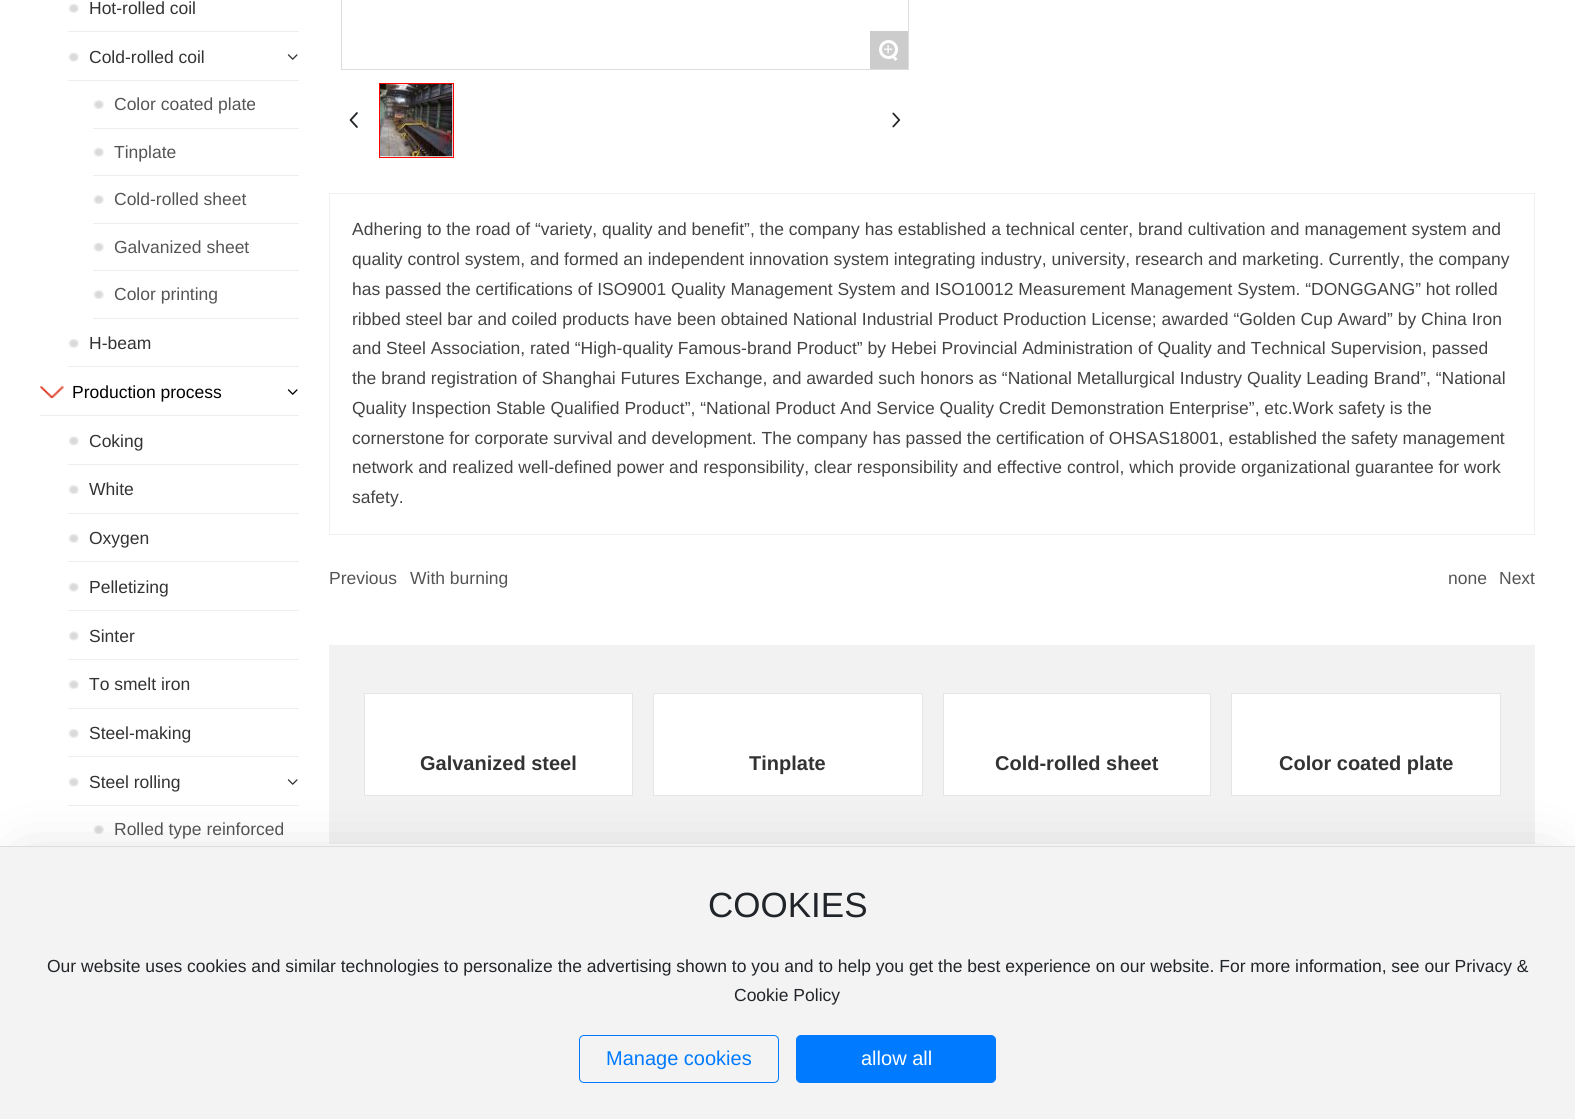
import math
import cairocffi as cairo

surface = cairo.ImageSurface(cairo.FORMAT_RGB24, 1575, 1119)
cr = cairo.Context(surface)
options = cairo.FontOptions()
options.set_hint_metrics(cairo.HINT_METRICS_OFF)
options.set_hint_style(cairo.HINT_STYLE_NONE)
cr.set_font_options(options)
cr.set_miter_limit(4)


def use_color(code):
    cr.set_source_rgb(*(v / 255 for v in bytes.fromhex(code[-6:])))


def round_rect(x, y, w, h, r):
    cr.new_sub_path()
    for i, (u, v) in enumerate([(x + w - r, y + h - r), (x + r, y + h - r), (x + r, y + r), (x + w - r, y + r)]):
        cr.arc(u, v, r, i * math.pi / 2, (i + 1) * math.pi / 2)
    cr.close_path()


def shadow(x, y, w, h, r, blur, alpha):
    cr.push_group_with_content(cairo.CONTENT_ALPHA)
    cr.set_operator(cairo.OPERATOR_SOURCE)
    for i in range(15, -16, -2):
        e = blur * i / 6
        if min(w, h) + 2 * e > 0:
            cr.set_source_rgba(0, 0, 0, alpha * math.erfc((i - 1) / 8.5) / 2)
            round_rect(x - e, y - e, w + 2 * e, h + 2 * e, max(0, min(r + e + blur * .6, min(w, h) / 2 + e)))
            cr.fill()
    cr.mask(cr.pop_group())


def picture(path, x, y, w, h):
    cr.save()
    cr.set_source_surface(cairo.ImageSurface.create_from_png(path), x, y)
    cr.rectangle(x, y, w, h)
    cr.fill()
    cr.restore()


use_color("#ffffff")
cr.paint()
picture("img1.png", 68, 4, 11, 9)
use_color("#eeeeee")
cr.rectangle(68, 31, 231, 1)
cr.fill()
cr.select_font_face("Liberation Sans")
cr.set_font_size(17.5)
use_color("#333333")
cr.move_to(89, 14)
cr.show_text("Hot-rolled coil")
picture("img2.png", 68, 52, 11, 10)
use_color("#eeeeee")
cr.rectangle(68, 80, 231, 1)
cr.fill()
use_color("#333333")
cr.move_to(89, 63)
cr.show_text("Cold-rolled coil")
picture("img3.png", 287, 54, 11, 6)
picture("img4.png", 93, 100, 11, 9)
use_color("#eeeeee")
cr.rectangle(93, 128, 206, 1)
cr.fill()
use_color("#555555")
cr.move_to(114, 110)
cr.show_text("Color coated plate")
picture("img2.png", 93, 147, 11, 10)
use_color("#eeeeee")
cr.rectangle(93, 175, 206, 1)
cr.fill()
use_color("#555555")
cr.move_to(114, 158)
cr.show_text("Tinplate")
picture("img4.png", 93, 195, 11, 9)
use_color("#eeeeee")
cr.rectangle(93, 223, 206, 1)
cr.fill()
use_color("#555555")
cr.move_to(114, 205)
cr.show_text("Cold-rolled sheet")
picture("img2.png", 93, 242, 11, 10)
use_color("#eeeeee")
cr.rectangle(93, 270, 206, 1)
cr.fill()
use_color("#555555")
cr.move_to(114, 253)
cr.show_text("Galvanized sheet")
picture("img4.png", 93, 290, 11, 9)
use_color("#eeeeee")
cr.rectangle(93, 318, 206, 1)
cr.fill()
use_color("#555555")
cr.move_to(114, 300)
cr.show_text("Color printing")
picture("img5.png", 68, 339, 11, 9)
use_color("#eeeeee")
cr.rectangle(68, 366, 231, 1)
cr.fill()
use_color("#333333")
cr.move_to(89, 349)
cr.show_text("H-beam")
picture("img6.png", 40, 385, 24, 14)
use_color("#eeeeee")
cr.rectangle(40, 415, 259, 1)
cr.fill()
use_color("#000000")
cr.move_to(72, 398)
cr.show_text("Production process")
picture("img7.png", 287, 389, 11, 6)
picture("img8.png", 69, 436, 10, 10)
use_color("#eeeeee")
cr.rectangle(68, 464, 231, 1)
cr.fill()
use_color("#333333")
cr.move_to(89, 447)
cr.show_text("Coking")
picture("img4.png", 68, 485, 11, 9)
use_color("#eeeeee")
cr.rectangle(68, 513, 231, 1)
cr.fill()
use_color("#333333")
cr.move_to(89, 495)
cr.show_text("White")
picture("img5.png", 68, 534, 11, 9)
use_color("#eeeeee")
cr.rectangle(68, 561, 231, 1)
cr.fill()
use_color("#333333")
cr.move_to(89, 544)
cr.show_text("Oxygen")
picture("img2.png", 68, 582, 11, 10)
use_color("#eeeeee")
cr.rectangle(68, 610, 231, 1)
cr.fill()
use_color("#333333")
cr.move_to(89, 593)
cr.show_text("Pelletizing")
picture("img8.png", 69, 631, 10, 10)
use_color("#eeeeee")
cr.rectangle(68, 659, 231, 1)
cr.fill()
use_color("#333333")
cr.move_to(89, 642)
cr.show_text("Sinter")
picture("img4.png", 68, 680, 11, 9)
use_color("#eeeeee")
cr.rectangle(68, 708, 231, 1)
cr.fill()
use_color("#333333")
cr.move_to(89, 690)
cr.show_text("To smelt iron")
picture("img5.png", 68, 729, 11, 9)
use_color("#eeeeee")
cr.rectangle(68, 756, 231, 1)
cr.fill()
use_color("#333333")
cr.move_to(89, 739)
cr.show_text("Steel-making")
picture("img2.png", 68, 777, 11, 10)
use_color("#eeeeee")
cr.rectangle(68, 805, 231, 1)
cr.fill()
use_color("#333333")
cr.move_to(89, 788)
cr.show_text("Steel rolling")
picture("img3.png", 287, 779, 11, 6)
picture("img4.png", 93, 825, 11, 9)
use_color("#555555")
cr.move_to(114, 835)
cr.show_text("Rolled type reinforced")
cr.rectangle(341.5, -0.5, 567, 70)
use_color("#dddddd")
cr.set_line_width(1)
cr.stroke()
use_color("#cccccc")
cr.rectangle(870, 31, 38, 38)
cr.fill()
cr.arc(888.5, 49.5, 8, 0, 2 * math.pi)
use_color("#ffffff")
cr.set_line_width(3)
cr.stroke()
cr.move_to(883, 55)
cr.show_text("+")
cr.new_path()
cr.move_to(893, 54.5)
cr.line_to(897.5, 59)
cr.line_to(895.5, 61)
cr.line_to(891, 56.5)
cr.close_path()
cr.fill()
cr.rectangle(379.5, 83.5, 74, 74)
use_color("#ff0000")
cr.set_line_width(1)
cr.stroke()
picture("img9.png", 380, 84, 73, 73)
picture("img10.png", 349, 112, 9, 16)
picture("img11.png", 892, 112, 9, 16)
cr.rectangle(329.5, 193.5, 1205, 341)
use_color("#f0f0f0")
cr.stroke()
use_color("#444444")
cr.move_to(352, 235)
cr.show_text("Adhering to the road of “variety, quality and benefit”, the company has established a technical center, brand cultivation and management system and")
cr.move_to(352, 265)
cr.show_text("quality control system, and formed an independent innovation system integrating industry, university, research and marketing. Currently, the company")
cr.move_to(352, 295)
cr.show_text("has passed the certifications of ISO9001 Quality Management System and ISO10012 Measurement Management System. “DONGGANG” hot rolled")
cr.move_to(352, 325)
cr.show_text("ribbed steel bar and coiled products have been obtained National Industrial Product Production License; awarded “Golden Cup Award” by China Iron")
cr.move_to(352, 354)
cr.show_text("and Steel Association, rated “High-quality Famous-brand Product” by Hebei Provincial Administration of Quality and Technical Supervision, passed")
cr.move_to(352, 384)
cr.show_text("the brand registration of Shanghai Futures Exchange, and awarded such honors as “National Metallurgical Industry Quality Leading Brand”, “National")
cr.move_to(352, 414)
cr.show_text("Quality Inspection Stable Qualified Product”, “National Product And Service Quality Credit Demonstration Enterprise”, etc.Work safety is the")
cr.move_to(352, 444)
cr.show_text("cornerstone for corporate survival and development. The company has passed the certification of OHSAS18001, established the safety management")
cr.move_to(352, 473)
cr.show_text("network and realized well-defined power and responsibility, clear responsibility and effective control, which provide organizational guarantee for work")
cr.move_to(352, 503)
cr.show_text("safety.")
use_color("#555555")
cr.move_to(329, 584)
cr.show_text("Previous")
cr.move_to(410, 584)
cr.show_text("With burning")
cr.move_to(1448, 584)
cr.show_text("none")
cr.move_to(1499, 584)
cr.show_text("Next")
use_color("#f2f2f2")
cr.rectangle(329, 645, 1206, 199)
cr.fill()
use_color("#ffffff")
cr.rectangle(364.5, 693.5, 268, 102)
cr.fill_preserve()
use_color("#e5e5e5")
cr.stroke()
cr.select_font_face("Liberation Sans", cairo.FONT_SLANT_NORMAL, cairo.FONT_WEIGHT_BOLD)
cr.set_font_size(20)
use_color("#333333")
cr.move_to(420, 770)
cr.show_text("Galvanized steel")
use_color("#ffffff")
cr.rectangle(653.5, 693.5, 269, 102)
cr.fill_preserve()
use_color("#e5e5e5")
cr.stroke()
use_color("#333333")
cr.move_to(749, 770)
cr.show_text("Tinplate")
use_color("#ffffff")
cr.rectangle(943.5, 693.5, 267, 102)
cr.fill_preserve()
use_color("#e5e5e5")
cr.stroke()
use_color("#333333")
cr.move_to(995, 770)
cr.show_text("Cold-rolled sheet")
use_color("#ffffff")
cr.rectangle(1231.5, 693.5, 269, 102)
cr.fill_preserve()
use_color("#e5e5e5")
cr.stroke()
use_color("#333333")
cr.move_to(1279, 770)
cr.show_text("Color coated plate")
use_color("#000000")
shadow(26, 868, 1523, 221, 0, 31, 0.2)
use_color("#f3f3f3")
cr.rectangle(0, 847, 1575, 272)
cr.fill()
use_color("#dddddd")
cr.rectangle(0, 846, 1575, 1)
cr.fill()
cr.select_font_face("Liberation Sans")
cr.set_font_size(35)
use_color("#212529")
cr.move_to(708, 917)
cr.show_text("COOKIES")
cr.set_font_size(17.5)
cr.move_to(47, 972)
cr.show_text("Our website uses cookies and similar technologies to personalize the advertising shown to you and to help you get the best experience on our website. For more information, see our Privacy &")
cr.move_to(734, 1001)
cr.show_text("Cookie Policy")
round_rect(579.5, 1035.5, 199, 47, 4.5)
use_color("#007bff")
cr.stroke()
cr.set_font_size(20)
cr.move_to(606, 1065)
cr.show_text("Manage cookies")
round_rect(796.5, 1035.5, 199, 47, 4.5)
cr.fill_preserve()
cr.stroke()
use_color("#ffffff")
cr.move_to(861, 1065)
cr.show_text("allow all")
surface.write_to_png("result.png")
